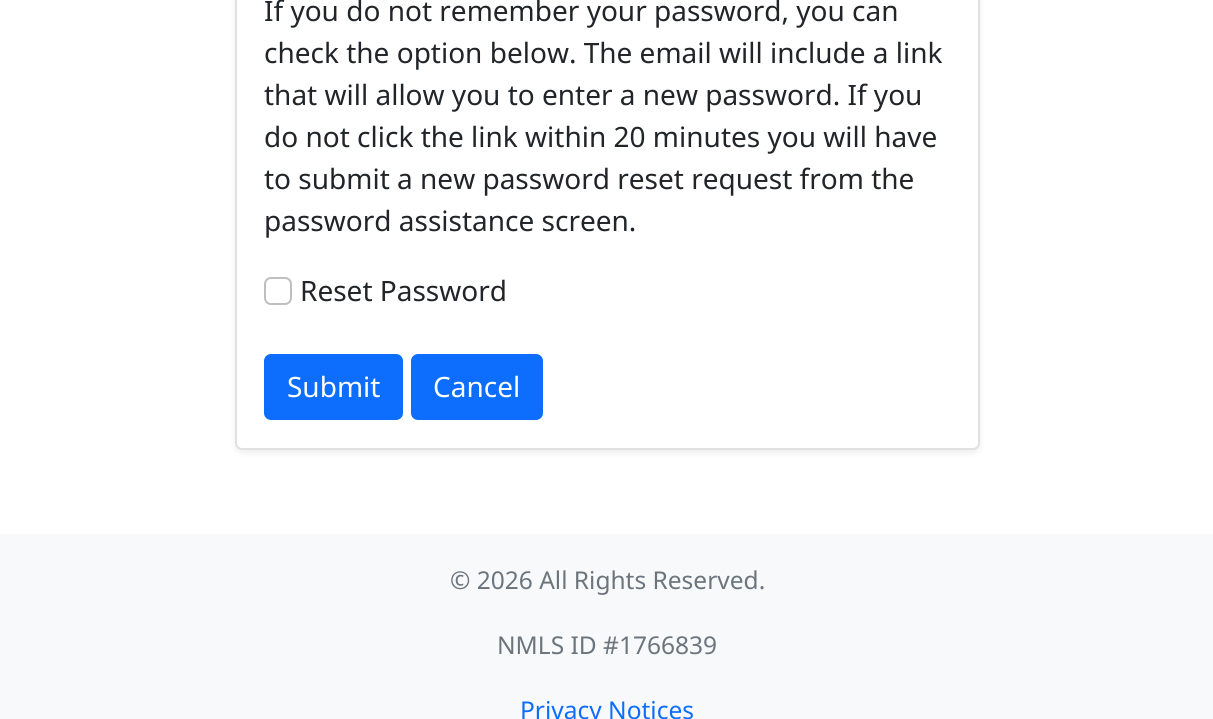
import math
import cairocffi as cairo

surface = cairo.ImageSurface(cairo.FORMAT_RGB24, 1213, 719)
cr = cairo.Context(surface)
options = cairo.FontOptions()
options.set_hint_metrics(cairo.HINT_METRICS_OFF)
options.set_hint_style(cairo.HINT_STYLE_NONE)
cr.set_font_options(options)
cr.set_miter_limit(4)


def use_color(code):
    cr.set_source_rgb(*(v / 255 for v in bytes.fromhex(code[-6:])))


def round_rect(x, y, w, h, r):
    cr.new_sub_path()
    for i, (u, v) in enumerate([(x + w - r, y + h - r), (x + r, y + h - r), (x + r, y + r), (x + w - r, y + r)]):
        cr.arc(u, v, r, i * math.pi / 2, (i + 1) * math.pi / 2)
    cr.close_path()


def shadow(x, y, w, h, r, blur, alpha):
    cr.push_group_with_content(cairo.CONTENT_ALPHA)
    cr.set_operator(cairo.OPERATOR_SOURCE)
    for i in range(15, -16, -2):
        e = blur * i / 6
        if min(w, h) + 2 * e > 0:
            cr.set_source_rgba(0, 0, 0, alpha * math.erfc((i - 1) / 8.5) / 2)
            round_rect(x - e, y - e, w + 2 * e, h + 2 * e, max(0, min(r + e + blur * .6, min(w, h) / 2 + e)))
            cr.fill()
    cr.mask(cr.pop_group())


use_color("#ffffff")
cr.paint()
use_color("#000000")
shadow(235, -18, 745, 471, 7, 3.5, 0.07)
use_color("#ffffff")
round_rect(235, -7, 745, 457, 7)
cr.fill()
round_rect(236, -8, 743, 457, 6)
cr.set_source_rgba(0, 0, 0, 0.12)
cr.stroke()
cr.select_font_face("Noto Sans")
cr.set_font_size(28)
use_color("#212529")
cr.move_to(264, 21)
cr.show_text("If you do not remember your password, you can")
cr.move_to(264, 63)
cr.show_text("check the option below. The email will include a link")
cr.move_to(264, 105)
cr.show_text("that will allow you to enter a new password. If you")
cr.move_to(264, 147)
cr.show_text("do not click the link within 20 minutes you will have")
cr.move_to(264, 189)
cr.show_text("to submit a new password reset request from the")
cr.move_to(264, 231)
cr.show_text("password assistance screen.")
round_rect(265, 278, 26, 26, 6)
use_color("#bfbfbf")
cr.stroke()
use_color("#212529")
cr.move_to(300, 301)
cr.show_text("Reset Password")
use_color("#0d6efd")
round_rect(265, 355, 137, 64, 6)
cr.fill_preserve()
cr.stroke()
use_color("#ffffff")
cr.move_to(287, 397)
cr.show_text("Submit")
use_color("#0d6efd")
round_rect(412, 355, 130, 64, 6)
cr.fill_preserve()
cr.stroke()
use_color("#ffffff")
cr.move_to(433, 397)
cr.show_text("Cancel")
use_color("#f8f9fa")
cr.rectangle(0, 534, 1213, 185)
cr.fill()
cr.set_font_size(24.5)
use_color("#6c757d")
cr.move_to(450, 589)
cr.show_text("© 2026 All Rights Reserved.")
cr.move_to(497, 654)
cr.show_text("NMLS ID #1766839")
use_color("#0d6efd")
cr.move_to(520, 719)
cr.show_text("Privacy Notices")
surface.write_to_png("result.png")
